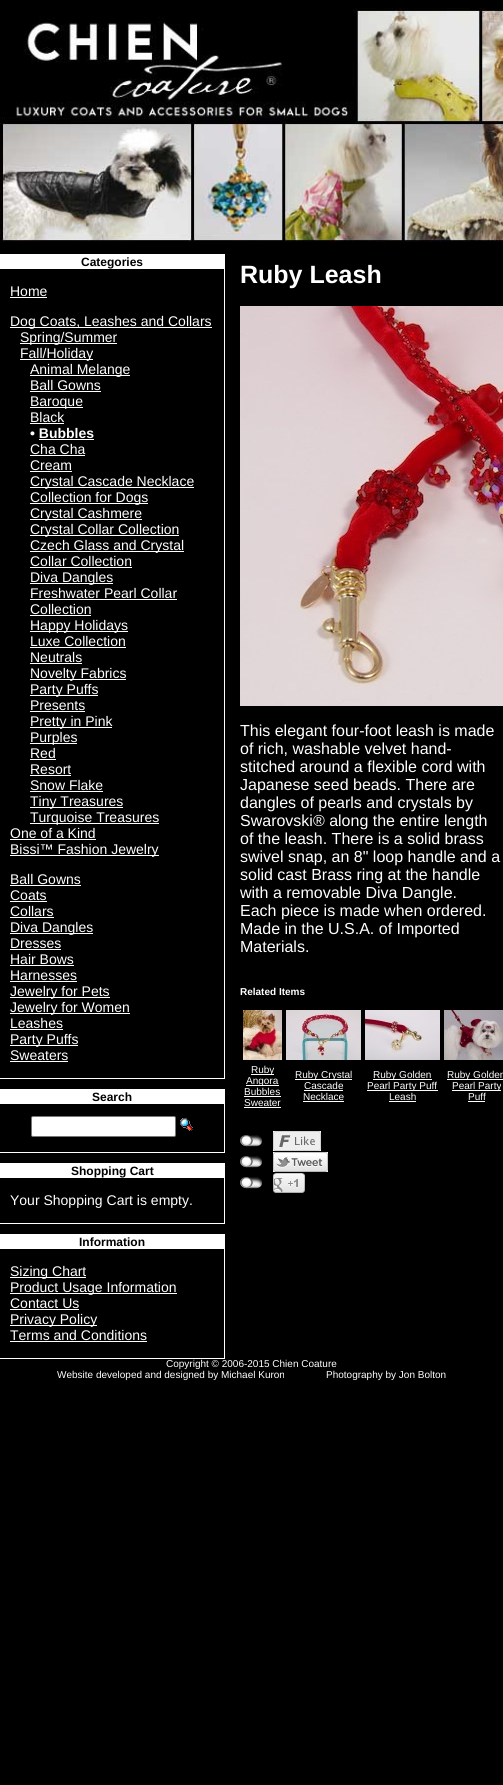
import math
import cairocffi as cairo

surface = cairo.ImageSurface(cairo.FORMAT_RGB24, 503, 1785)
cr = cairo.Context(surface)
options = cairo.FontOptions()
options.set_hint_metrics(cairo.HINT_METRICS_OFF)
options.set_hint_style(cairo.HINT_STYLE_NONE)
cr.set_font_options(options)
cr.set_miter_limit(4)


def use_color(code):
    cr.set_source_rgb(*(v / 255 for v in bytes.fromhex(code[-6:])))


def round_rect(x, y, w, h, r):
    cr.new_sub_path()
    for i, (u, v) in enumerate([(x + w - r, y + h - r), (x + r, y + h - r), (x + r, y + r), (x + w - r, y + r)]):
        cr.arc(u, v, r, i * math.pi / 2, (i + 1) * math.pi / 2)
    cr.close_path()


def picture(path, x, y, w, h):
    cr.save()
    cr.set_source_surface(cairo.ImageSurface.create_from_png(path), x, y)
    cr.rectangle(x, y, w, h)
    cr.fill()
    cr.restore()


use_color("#000000")
cr.paint()
picture("img1.png", 0, 8, 503, 235)
use_color("#ffffff")
cr.rectangle(0, 255, 224, 14)
cr.fill()
cr.rectangle(10, 297, 37, 1)
cr.fill()
cr.rectangle(10, 327, 202, 1)
cr.fill()
cr.rectangle(20, 343, 97, 1)
cr.fill()
cr.rectangle(20, 359, 73, 1)
cr.fill()
cr.rectangle(30, 375, 100, 1)
cr.fill()
cr.rectangle(30, 391, 71, 1)
cr.fill()
cr.rectangle(30, 407, 53, 1)
cr.fill()
cr.rectangle(30, 423, 34, 1)
cr.fill()
cr.rectangle(39, 439, 55, 1)
cr.fill()
cr.rectangle(30, 455, 55, 1)
cr.fill()
cr.rectangle(30, 471, 42, 1)
cr.fill()
cr.rectangle(30, 487, 164, 1)
cr.fill()
cr.rectangle(30, 503, 118, 1)
cr.fill()
cr.rectangle(30, 519, 112, 1)
cr.fill()
cr.rectangle(30, 535, 149, 1)
cr.fill()
cr.rectangle(30, 551, 154, 1)
cr.fill()
cr.rectangle(30, 567, 102, 1)
cr.fill()
cr.rectangle(30, 583, 83, 1)
cr.fill()
cr.rectangle(30, 599, 147, 1)
cr.fill()
cr.rectangle(30, 615, 61, 1)
cr.fill()
cr.rectangle(30, 631, 98, 1)
cr.fill()
cr.rectangle(30, 647, 96, 1)
cr.fill()
cr.rectangle(30, 663, 52, 1)
cr.fill()
cr.rectangle(30, 679, 96, 1)
cr.fill()
cr.rectangle(30, 695, 68, 1)
cr.fill()
cr.rectangle(30, 711, 55, 1)
cr.fill()
cr.rectangle(30, 727, 82, 1)
cr.fill()
cr.rectangle(30, 743, 47, 1)
cr.fill()
cr.rectangle(30, 759, 26, 1)
cr.fill()
cr.rectangle(30, 775, 41, 1)
cr.fill()
cr.rectangle(30, 791, 73, 1)
cr.fill()
cr.rectangle(30, 807, 93, 1)
cr.fill()
cr.rectangle(30, 823, 129, 1)
cr.fill()
cr.rectangle(10, 839, 86, 1)
cr.fill()
cr.rectangle(10, 855, 149, 1)
cr.fill()
cr.rectangle(10, 885, 71, 1)
cr.fill()
cr.rectangle(10, 901, 37, 1)
cr.fill()
cr.rectangle(10, 917, 44, 1)
cr.fill()
cr.rectangle(10, 933, 83, 1)
cr.fill()
cr.rectangle(10, 949, 51, 1)
cr.fill()
cr.rectangle(10, 965, 64, 1)
cr.fill()
cr.rectangle(10, 981, 67, 1)
cr.fill()
cr.rectangle(10, 997, 100, 1)
cr.fill()
cr.rectangle(10, 1013, 120, 1)
cr.fill()
cr.rectangle(10, 1029, 53, 1)
cr.fill()
cr.rectangle(10, 1045, 68, 1)
cr.fill()
cr.rectangle(10, 1061, 58, 1)
cr.fill()
cr.rectangle(-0.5, 254.5, 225, 824)
cr.set_line_width(1)
cr.stroke()
cr.select_font_face("Liberation Sans", cairo.FONT_SLANT_NORMAL, cairo.FONT_WEIGHT_BOLD)
cr.set_font_size(12)
use_color("#000000")
cr.move_to(81, 266)
cr.show_text("Categories")
cr.select_font_face("Liberation Sans")
cr.set_font_size(14)
use_color("#ffffff")
cr.move_to(10, 296)
cr.show_text("Home")
cr.move_to(10, 326)
cr.show_text("Dog Coats, Leashes and Collars")
cr.move_to(20, 342)
cr.show_text("Spring/Summer")
cr.move_to(20, 358)
cr.show_text("Fall/Holiday")
cr.move_to(30, 374)
cr.show_text("Animal Melange")
cr.move_to(30, 390)
cr.show_text("Ball Gowns")
cr.move_to(30, 406)
cr.show_text("Baroque")
cr.move_to(30, 422)
cr.show_text("Black")
cr.select_font_face("Liberation Sans", cairo.FONT_SLANT_NORMAL, cairo.FONT_WEIGHT_BOLD)
cr.move_to(30, 438)
cr.show_text("• Bubbles")
cr.select_font_face("Liberation Sans")
cr.move_to(30, 454)
cr.show_text("Cha Cha")
cr.move_to(30, 470)
cr.show_text("Cream")
cr.move_to(30, 486)
cr.show_text("Crystal Cascade Necklace")
cr.move_to(30, 502)
cr.show_text("Collection for Dogs")
cr.move_to(30, 518)
cr.show_text("Crystal Cashmere")
cr.move_to(30, 534)
cr.show_text("Crystal Collar Collection")
cr.move_to(30, 550)
cr.show_text("Czech Glass and Crystal")
cr.move_to(30, 566)
cr.show_text("Collar Collection")
cr.move_to(30, 582)
cr.show_text("Diva Dangles")
cr.move_to(30, 598)
cr.show_text("Freshwater Pearl Collar")
cr.move_to(30, 614)
cr.show_text("Collection")
cr.move_to(30, 630)
cr.show_text("Happy Holidays")
cr.move_to(30, 646)
cr.show_text("Luxe Collection")
cr.move_to(30, 662)
cr.show_text("Neutrals")
cr.move_to(30, 678)
cr.show_text("Novelty Fabrics")
cr.move_to(30, 694)
cr.show_text("Party Puffs")
cr.move_to(30, 710)
cr.show_text("Presents")
cr.move_to(30, 726)
cr.show_text("Pretty in Pink")
cr.move_to(30, 742)
cr.show_text("Purples")
cr.move_to(30, 758)
cr.show_text("Red")
cr.move_to(30, 774)
cr.show_text("Resort")
cr.move_to(30, 790)
cr.show_text("Snow Flake")
cr.move_to(30, 806)
cr.show_text("Tiny Treasures")
cr.move_to(30, 822)
cr.show_text("Turquoise Treasures")
cr.move_to(10, 838)
cr.show_text("One of a Kind")
cr.move_to(10, 854)
cr.show_text("Bissi™ Fashion Jewelry")
cr.move_to(10, 884)
cr.show_text("Ball Gowns")
cr.move_to(10, 900)
cr.show_text("Coats")
cr.move_to(10, 916)
cr.show_text("Collars")
cr.move_to(10, 932)
cr.show_text("Diva Dangles")
cr.move_to(10, 948)
cr.show_text("Dresses")
cr.move_to(10, 964)
cr.show_text("Hair Bows")
cr.move_to(10, 980)
cr.show_text("Harnesses")
cr.move_to(10, 996)
cr.show_text("Jewelry for Pets")
cr.move_to(10, 1012)
cr.show_text("Jewelry for Women")
cr.move_to(10, 1028)
cr.show_text("Leashes")
cr.move_to(10, 1044)
cr.show_text("Party Puffs")
cr.move_to(10, 1060)
cr.show_text("Sweaters")
cr.rectangle(0, 1090, 224, 14)
cr.fill()
round_rect(31.5, 1116.5, 144, 20, 1.5)
cr.fill_preserve()
use_color("#767676")
cr.stroke()
picture("img2.png", 180, 1118, 13, 13)
cr.rectangle(-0.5, 1089.5, 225, 63)
use_color("#ffffff")
cr.stroke()
cr.select_font_face("Liberation Sans", cairo.FONT_SLANT_NORMAL, cairo.FONT_WEIGHT_BOLD)
cr.set_font_size(12)
use_color("#000000")
cr.move_to(92, 1101)
cr.show_text("Search")
use_color("#ffffff")
cr.rectangle(0, 1164, 224, 14)
cr.fill()
cr.rectangle(-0.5, 1163.5, 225, 60)
cr.stroke()
use_color("#000000")
cr.move_to(71, 1175)
cr.show_text("Shopping Cart")
cr.select_font_face("Liberation Sans")
cr.set_font_size(14)
use_color("#ffffff")
cr.move_to(10, 1205)
cr.show_text("Your Shopping Cart is empty.")
cr.rectangle(0, 1235, 224, 14)
cr.fill()
cr.rectangle(10, 1277, 76, 1)
cr.fill()
cr.rectangle(10, 1293, 167, 1)
cr.fill()
cr.rectangle(10, 1309, 69, 1)
cr.fill()
cr.rectangle(10, 1325, 87, 1)
cr.fill()
cr.rectangle(10, 1341, 137, 1)
cr.fill()
cr.rectangle(-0.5, 1234.5, 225, 124)
cr.stroke()
cr.select_font_face("Liberation Sans", cairo.FONT_SLANT_NORMAL, cairo.FONT_WEIGHT_BOLD)
cr.set_font_size(12)
use_color("#000000")
cr.move_to(79, 1246)
cr.show_text("Information")
cr.select_font_face("Liberation Sans")
cr.set_font_size(14)
use_color("#ffffff")
cr.move_to(10, 1276)
cr.show_text("Sizing Chart")
cr.move_to(10, 1292)
cr.show_text("Product Usage Information")
cr.move_to(10, 1308)
cr.show_text("Contact Us")
cr.move_to(10, 1324)
cr.show_text("Privacy Policy")
cr.move_to(10, 1340)
cr.show_text("Terms and Conditions")
cr.select_font_face("Liberation Sans", cairo.FONT_SLANT_NORMAL, cairo.FONT_WEIGHT_BOLD)
cr.set_font_size(25)
cr.move_to(240, 283)
cr.show_text("Ruby Leash")
picture("img3.png", 240, 306, 263, 400)
cr.select_font_face("Liberation Sans")
cr.set_font_size(16)
cr.move_to(240, 736)
cr.show_text("This elegant four-foot leash is made")
cr.move_to(240, 754)
cr.show_text("of rich, washable velvet hand-")
cr.move_to(240, 772)
cr.show_text("stitched around a flexible cord with")
cr.move_to(240, 790)
cr.show_text("Japanese seed beads. There are")
cr.move_to(240, 808)
cr.show_text("dangles of pearls and crystals by")
cr.move_to(240, 826)
cr.show_text("Swarovski® along the entire length")
cr.move_to(240, 844)
cr.show_text("of the leash. There is a solid brass")
cr.move_to(240, 862)
cr.show_text("swivel snap, an 8\" loop handle and a")
cr.move_to(240, 880)
cr.show_text("solid cast Brass ring at the handle")
cr.move_to(240, 898)
cr.show_text("with a removable Diva Dangle.")
cr.move_to(240, 916)
cr.show_text("Each piece is made when ordered.")
cr.move_to(240, 934)
cr.show_text("Made in the U.S.A. of Imported")
cr.move_to(240, 952)
cr.show_text("Materials.")
cr.select_font_face("Liberation Sans", cairo.FONT_SLANT_NORMAL, cairo.FONT_WEIGHT_BOLD)
cr.set_font_size(10)
cr.move_to(240, 995)
cr.show_text("Related Items")
picture("img4.png", 243, 1010, 39, 50)
picture("img5.png", 286, 1010, 75, 50)
picture("img6.png", 365, 1010, 75, 50)
picture("img7.png", 444, 1010, 59, 50)
cr.rectangle(251, 1074, 23, 1)
cr.fill()
cr.select_font_face("Liberation Sans")
cr.move_to(251, 1073)
cr.show_text("Ruby")
cr.rectangle(246, 1085, 33, 1)
cr.fill()
cr.move_to(246, 1084)
cr.show_text("Angora")
cr.move_to(244, 1095)
cr.show_text("Bubbles")
cr.rectangle(244, 1096, 37, 1)
cr.fill()
cr.move_to(244, 1106)
cr.show_text("Sweater")
cr.rectangle(244, 1107, 37, 1)
cr.fill()
cr.rectangle(295, 1079, 57, 1)
cr.fill()
cr.move_to(295, 1078)
cr.show_text("Ruby Crystal")
cr.move_to(304, 1089)
cr.show_text("Cascade")
cr.rectangle(304, 1090, 39, 1)
cr.fill()
cr.move_to(303, 1100)
cr.show_text("Necklace")
cr.rectangle(303, 1101, 41, 1)
cr.fill()
cr.rectangle(373, 1079, 59, 1)
cr.fill()
cr.move_to(373, 1078)
cr.show_text("Ruby Golden")
cr.rectangle(367, 1090, 71, 1)
cr.fill()
cr.move_to(367, 1089)
cr.show_text("Pearl Party Puff")
cr.move_to(389, 1100)
cr.show_text("Leash")
cr.rectangle(389, 1101, 27, 1)
cr.fill()
cr.rectangle(447, 1079, 56, 1)
cr.fill()
cr.move_to(447, 1078)
cr.show_text("Ruby Golden")
cr.rectangle(452, 1090, 49, 1)
cr.fill()
cr.move_to(452, 1089)
cr.show_text("Pearl Party")
cr.move_to(468, 1100)
cr.show_text("Puff")
cr.rectangle(468, 1101, 17, 1)
cr.fill()
picture("img8.png", 240, 1135, 23, 12)
picture("img9.png", 273, 1131, 48, 20)
picture("img8.png", 240, 1156, 23, 12)
picture("img10.png", 273, 1152, 55, 20)
picture("img8.png", 240, 1177, 23, 12)
picture("img11.png", 273, 1173, 32, 20)
cr.move_to(166, 1367)
cr.show_text("Copyright © 2006-2015 Chien Coature")
cr.move_to(57, 1378)
cr.show_text("Website developed and designed by Michael Kuron")
cr.move_to(326, 1378)
cr.show_text("Photography by Jon Bolton")
surface.write_to_png("result.png")
